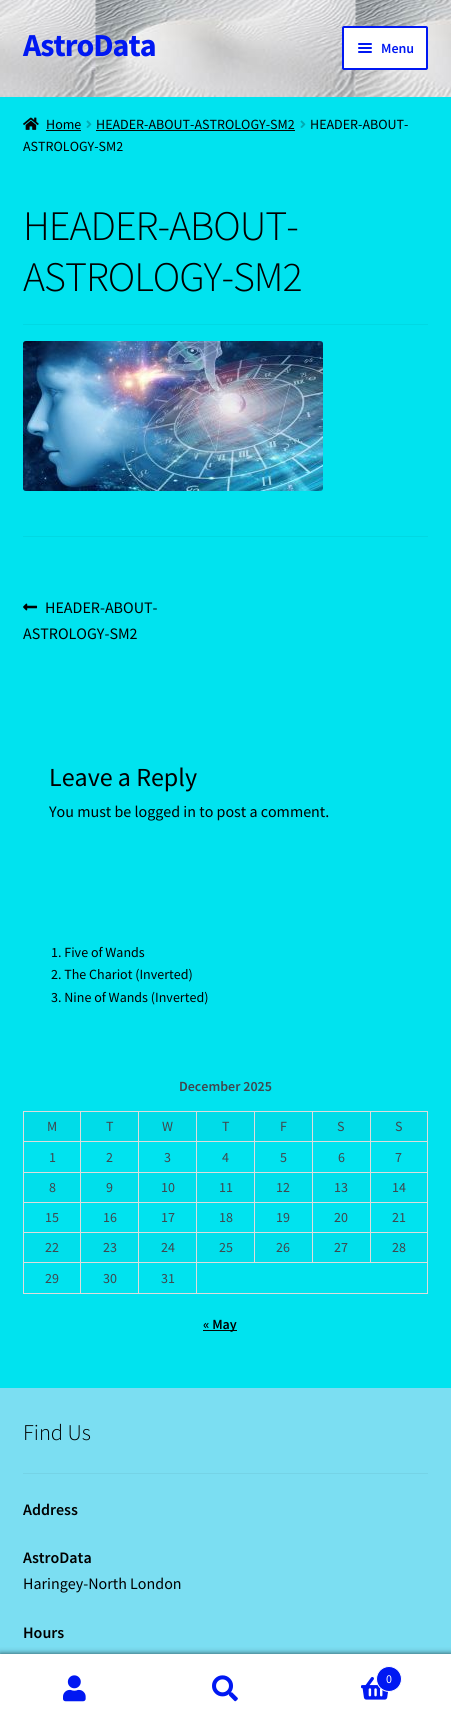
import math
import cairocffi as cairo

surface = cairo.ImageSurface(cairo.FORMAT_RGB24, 451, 1723)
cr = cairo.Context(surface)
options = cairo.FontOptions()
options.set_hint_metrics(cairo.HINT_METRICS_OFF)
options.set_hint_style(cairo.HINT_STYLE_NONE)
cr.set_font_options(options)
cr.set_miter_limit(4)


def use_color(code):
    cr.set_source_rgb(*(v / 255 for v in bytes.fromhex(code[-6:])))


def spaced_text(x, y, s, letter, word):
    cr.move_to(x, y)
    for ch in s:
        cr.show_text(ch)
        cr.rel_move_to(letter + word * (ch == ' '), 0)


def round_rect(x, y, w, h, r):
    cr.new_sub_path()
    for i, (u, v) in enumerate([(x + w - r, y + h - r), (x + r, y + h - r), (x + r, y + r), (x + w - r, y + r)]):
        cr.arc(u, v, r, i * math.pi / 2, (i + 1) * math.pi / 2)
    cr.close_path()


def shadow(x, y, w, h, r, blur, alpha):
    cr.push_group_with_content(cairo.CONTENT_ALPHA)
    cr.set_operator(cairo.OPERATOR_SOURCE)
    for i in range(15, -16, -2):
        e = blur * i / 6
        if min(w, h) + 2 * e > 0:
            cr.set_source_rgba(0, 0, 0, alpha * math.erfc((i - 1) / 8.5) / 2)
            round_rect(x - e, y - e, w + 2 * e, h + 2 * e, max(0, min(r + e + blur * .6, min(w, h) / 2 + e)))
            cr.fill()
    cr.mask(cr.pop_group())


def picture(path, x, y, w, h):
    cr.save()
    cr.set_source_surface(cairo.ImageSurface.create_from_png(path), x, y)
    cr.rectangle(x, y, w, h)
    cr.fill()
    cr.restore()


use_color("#00e3ef")
cr.paint()
picture("img1.png", 0, 0, 451, 97)
cr.select_font_face("Source Sans Pro", cairo.FONT_SLANT_NORMAL, cairo.FONT_WEIGHT_BOLD)
cr.set_font_size(32)
use_color("#0018f2")
spaced_text(23, 56, "AstroData", -1, 0)
use_color("#ffffff")
round_rect(343, 27, 84, 42, 1)
cr.fill_preserve()
use_color("#0018f2")
cr.stroke()
round_rect(358, 43, 14, 2, 1)
cr.fill()
round_rect(358, 47, 14, 2, 1)
cr.fill()
cr.select_font_face("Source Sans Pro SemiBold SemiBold")
cr.set_font_size(14)
cr.move_to(381, 53)
cr.show_text("Menu")
round_rect(358, 51, 14, 2, 1)
cr.fill()
picture("img2.png", 23, 117, 16, 13)
cr.select_font_face("Source Sans Pro")
use_color("#000000")
cr.move_to(46, 129)
cr.show_text("Home")
use_color("#050505")
cr.rectangle(46, 130, 35, 1)
cr.fill()
picture("img3.png", 86, 120, 6, 8)
use_color("#000000")
cr.move_to(96, 129)
cr.show_text("HEADER-ABOUT-ASTROLOGY-SM2")
use_color("#050505")
cr.rectangle(96, 130, 199, 1)
cr.fill()
picture("img3.png", 300, 120, 6, 8)
use_color("#000000")
cr.move_to(310, 129)
cr.show_text("HEADER-ABOUT-")
cr.move_to(23, 151)
cr.show_text("ASTROLOGY-SM2")
use_color("#00d8e3")
cr.rectangle(23, 324, 405, 1)
cr.fill()
cr.select_font_face("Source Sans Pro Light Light")
cr.set_font_size(42)
use_color("#000000")
spaced_text(23, 240, "HEADER-ABOUT-", -1, 0)
spaced_text(23, 291, "ASTROLOGY-SM2", -1, 0)
picture("img4.png", 23, 341, 300, 150)
use_color("#00d8e3")
cr.rectangle(23, 536, 405, 1)
cr.fill()
picture("img5.png", 23, 603, 15, 8)
cr.select_font_face("Source Sans Pro")
cr.set_font_size(16)
use_color("#000000")
cr.move_to(45, 613)
cr.show_text("HEADER-ABOUT-")
cr.move_to(23, 639)
cr.show_text("ASTROLOGY-SM2")
cr.set_font_size(26)
cr.move_to(49, 786)
cr.show_text("Leave a Reply")
cr.set_font_size(16)
cr.move_to(49, 817)
cr.show_text("You must be logged in to post a comment.")
cr.set_font_size(14)
cr.move_to(51, 957)
cr.show_text("1. Five of Wands")
cr.move_to(51, 979)
cr.show_text("2. The Chariot (Inverted)")
cr.move_to(51, 1002)
cr.show_text("3. Nine of Wands (Inverted)")
cr.select_font_face("Source Sans Pro SemiBold SemiBold")
use_color("#40464d")
cr.move_to(179, 1091)
cr.show_text("December 2025")
use_color("#00dce8")
cr.rectangle(24, 1112, 56, 29)
cr.fill()
use_color("#dddddd")
cr.rectangle(370, 1111, 58, 1)
cr.fill()
cr.rectangle(370, 1141, 58, 1)
cr.fill()
cr.rectangle(370, 1172, 58, 1)
cr.fill()
cr.rectangle(370, 1202, 58, 1)
cr.fill()
cr.rectangle(370, 1232, 58, 1)
cr.fill()
cr.rectangle(196, 1262, 232, 1)
cr.fill()
cr.rectangle(370, 1232, 1, 31)
cr.fill()
cr.rectangle(312, 1232, 59, 1)
cr.fill()
cr.rectangle(370, 1202, 1, 31)
cr.fill()
cr.rectangle(312, 1202, 59, 1)
cr.fill()
cr.rectangle(370, 1172, 1, 31)
cr.fill()
cr.rectangle(312, 1172, 59, 1)
cr.fill()
cr.rectangle(370, 1141, 1, 32)
cr.fill()
cr.rectangle(312, 1141, 59, 1)
cr.fill()
cr.rectangle(370, 1111, 1, 31)
cr.fill()
cr.rectangle(312, 1111, 59, 1)
cr.fill()
cr.rectangle(312, 1232, 1, 31)
cr.fill()
cr.rectangle(254, 1232, 59, 1)
cr.fill()
cr.rectangle(312, 1202, 1, 31)
cr.fill()
cr.rectangle(254, 1202, 59, 1)
cr.fill()
cr.rectangle(312, 1172, 1, 31)
cr.fill()
cr.rectangle(254, 1172, 59, 1)
cr.fill()
cr.rectangle(312, 1141, 1, 32)
cr.fill()
cr.rectangle(254, 1141, 59, 1)
cr.fill()
cr.rectangle(312, 1111, 1, 31)
cr.fill()
cr.rectangle(254, 1111, 59, 1)
cr.fill()
cr.rectangle(254, 1232, 1, 31)
cr.fill()
cr.rectangle(196, 1232, 59, 1)
cr.fill()
cr.rectangle(254, 1202, 1, 31)
cr.fill()
cr.rectangle(196, 1202, 59, 1)
cr.fill()
cr.rectangle(254, 1172, 1, 31)
cr.fill()
cr.rectangle(196, 1172, 59, 1)
cr.fill()
cr.rectangle(254, 1141, 1, 32)
cr.fill()
cr.rectangle(196, 1141, 59, 1)
cr.fill()
cr.rectangle(254, 1111, 1, 31)
cr.fill()
cr.rectangle(196, 1111, 59, 1)
cr.fill()
cr.rectangle(427, 1262, 1, 32)
cr.fill()
cr.rectangle(196, 1293, 232, 1)
cr.fill()
cr.rectangle(196, 1262, 1, 32)
cr.fill()
cr.rectangle(138, 1262, 59, 1)
cr.fill()
cr.rectangle(196, 1232, 1, 31)
cr.fill()
cr.rectangle(138, 1232, 59, 1)
cr.fill()
cr.rectangle(196, 1202, 1, 31)
cr.fill()
cr.rectangle(138, 1202, 59, 1)
cr.fill()
cr.rectangle(196, 1172, 1, 31)
cr.fill()
cr.rectangle(138, 1172, 59, 1)
cr.fill()
cr.rectangle(196, 1141, 1, 32)
cr.fill()
cr.rectangle(138, 1141, 59, 1)
cr.fill()
cr.rectangle(196, 1111, 1, 31)
cr.fill()
cr.rectangle(138, 1111, 59, 1)
cr.fill()
cr.rectangle(138, 1293, 59, 1)
cr.fill()
cr.rectangle(138, 1262, 1, 32)
cr.fill()
cr.rectangle(80, 1262, 59, 1)
cr.fill()
cr.rectangle(138, 1232, 1, 31)
cr.fill()
cr.rectangle(80, 1232, 59, 1)
cr.fill()
cr.rectangle(138, 1202, 1, 31)
cr.fill()
cr.rectangle(80, 1202, 59, 1)
cr.fill()
cr.rectangle(138, 1172, 1, 31)
cr.fill()
cr.rectangle(80, 1172, 59, 1)
cr.fill()
cr.rectangle(138, 1141, 1, 32)
cr.fill()
cr.rectangle(80, 1141, 59, 1)
cr.fill()
cr.rectangle(138, 1111, 1, 31)
cr.fill()
cr.rectangle(80, 1111, 59, 1)
cr.fill()
cr.rectangle(80, 1293, 59, 1)
cr.fill()
cr.rectangle(80, 1262, 1, 32)
cr.fill()
cr.rectangle(23, 1262, 58, 1)
cr.fill()
cr.rectangle(80, 1232, 1, 31)
cr.fill()
cr.rectangle(23, 1232, 58, 1)
cr.fill()
cr.rectangle(80, 1202, 1, 31)
cr.fill()
cr.rectangle(23, 1202, 58, 1)
cr.fill()
cr.rectangle(80, 1172, 1, 31)
cr.fill()
cr.rectangle(23, 1172, 58, 1)
cr.fill()
cr.rectangle(80, 1141, 1, 32)
cr.fill()
cr.rectangle(23, 1141, 58, 1)
cr.fill()
cr.rectangle(80, 1111, 1, 31)
cr.fill()
cr.rectangle(23, 1111, 58, 1)
cr.fill()
cr.rectangle(23, 1293, 58, 1)
cr.fill()
cr.rectangle(23, 1262, 1, 32)
cr.fill()
cr.rectangle(23, 1232, 1, 31)
cr.fill()
cr.rectangle(23, 1202, 1, 31)
cr.fill()
cr.rectangle(23, 1172, 1, 31)
cr.fill()
cr.rectangle(23, 1141, 1, 32)
cr.fill()
cr.rectangle(23, 1111, 1, 31)
cr.fill()
cr.select_font_face("Source Sans Pro")
use_color("#40464d")
cr.move_to(47, 1131)
cr.show_text("M")
use_color("#00dce8")
cr.rectangle(81, 1112, 57, 29)
cr.fill()
use_color("#40464d")
cr.move_to(106, 1131)
cr.show_text("T")
use_color("#00dce8")
cr.rectangle(139, 1112, 57, 29)
cr.fill()
use_color("#40464d")
cr.move_to(162, 1131)
cr.show_text("W")
use_color("#00dce8")
cr.rectangle(197, 1112, 57, 29)
cr.fill()
use_color("#40464d")
cr.move_to(222, 1131)
cr.show_text("T")
use_color("#00dce8")
cr.rectangle(255, 1112, 57, 29)
cr.fill()
use_color("#40464d")
cr.move_to(280, 1131)
cr.show_text("F")
use_color("#00dce8")
cr.rectangle(313, 1112, 57, 29)
cr.fill()
use_color("#40464d")
cr.move_to(337, 1131)
cr.show_text("S")
use_color("#00dce8")
cr.rectangle(371, 1112, 56, 29)
cr.fill()
use_color("#dddddd")
cr.rectangle(427, 1232, 1, 31)
cr.fill()
cr.rectangle(427, 1202, 1, 31)
cr.fill()
cr.rectangle(427, 1172, 1, 31)
cr.fill()
cr.rectangle(427, 1141, 1, 32)
cr.fill()
cr.rectangle(427, 1111, 1, 31)
cr.fill()
use_color("#40464d")
cr.move_to(395, 1131)
cr.show_text("S")
cr.move_to(49, 1162)
cr.show_text("1")
cr.move_to(106, 1162)
cr.show_text("2")
cr.move_to(164, 1162)
cr.show_text("3")
cr.move_to(222, 1162)
cr.show_text("4")
cr.move_to(280, 1162)
cr.show_text("5")
cr.move_to(338, 1162)
cr.show_text("6")
cr.move_to(395, 1162)
cr.show_text("7")
use_color("#00dfeb")
cr.rectangle(24, 1173, 56, 29)
cr.fill()
use_color("#40464d")
cr.move_to(49, 1192)
cr.show_text("8")
use_color("#00dfeb")
cr.rectangle(81, 1173, 57, 29)
cr.fill()
use_color("#40464d")
cr.move_to(106, 1192)
cr.show_text("9")
use_color("#00dfeb")
cr.rectangle(139, 1173, 57, 29)
cr.fill()
use_color("#40464d")
cr.move_to(161, 1192)
cr.show_text("10")
use_color("#00dfeb")
cr.rectangle(197, 1173, 57, 29)
cr.fill()
use_color("#40464d")
cr.move_to(219, 1192)
cr.show_text("11")
use_color("#00dfeb")
cr.rectangle(255, 1173, 57, 29)
cr.fill()
use_color("#40464d")
cr.move_to(276, 1192)
cr.show_text("12")
use_color("#00dfeb")
cr.rectangle(313, 1173, 57, 29)
cr.fill()
use_color("#40464d")
cr.move_to(334, 1192)
cr.show_text("13")
use_color("#00dfeb")
cr.rectangle(371, 1173, 56, 29)
cr.fill()
use_color("#40464d")
cr.move_to(392, 1192)
cr.show_text("14")
cr.move_to(45, 1222)
cr.show_text("15")
cr.move_to(103, 1222)
cr.show_text("16")
cr.move_to(161, 1222)
cr.show_text("17")
cr.move_to(219, 1222)
cr.show_text("18")
cr.move_to(276, 1222)
cr.show_text("19")
cr.move_to(334, 1222)
cr.show_text("20")
cr.move_to(392, 1222)
cr.show_text("21")
use_color("#00dfeb")
cr.rectangle(24, 1233, 56, 29)
cr.fill()
use_color("#40464d")
cr.move_to(45, 1252)
cr.show_text("22")
use_color("#00dfeb")
cr.rectangle(81, 1233, 57, 29)
cr.fill()
use_color("#40464d")
cr.move_to(103, 1252)
cr.show_text("23")
use_color("#00dfeb")
cr.rectangle(139, 1233, 57, 29)
cr.fill()
use_color("#40464d")
cr.move_to(161, 1252)
cr.show_text("24")
use_color("#00dfeb")
cr.rectangle(197, 1233, 57, 29)
cr.fill()
use_color("#40464d")
cr.move_to(219, 1252)
cr.show_text("25")
use_color("#00dfeb")
cr.rectangle(255, 1233, 57, 29)
cr.fill()
use_color("#40464d")
cr.move_to(276, 1252)
cr.show_text("26")
use_color("#00dfeb")
cr.rectangle(313, 1233, 57, 29)
cr.fill()
use_color("#40464d")
cr.move_to(334, 1252)
cr.show_text("27")
use_color("#00dfeb")
cr.rectangle(371, 1233, 56, 29)
cr.fill()
use_color("#40464d")
cr.move_to(392, 1252)
cr.show_text("28")
cr.move_to(45, 1283)
cr.show_text("29")
cr.move_to(103, 1283)
cr.show_text("30")
cr.move_to(161, 1283)
cr.show_text("31")
use_color("#050505")
cr.rectangle(203, 1330, 34, 1)
cr.fill()
cr.select_font_face("Source Sans Pro SemiBold SemiBold")
use_color("#000000")
cr.move_to(203, 1329)
cr.show_text("« May")
use_color("#7bdef2")
cr.rectangle(0, 1388, 451, 266)
cr.fill()
use_color("#75d3e6")
cr.rectangle(23, 1473, 405, 1)
cr.fill()
cr.select_font_face("Source Sans Pro Light Light")
cr.set_font_size(22.5)
use_color("#000000")
cr.move_to(23, 1440)
cr.show_text("Find Us")
cr.select_font_face("Source Sans Pro SemiBold SemiBold")
cr.set_font_size(16)
cr.move_to(23, 1515)
cr.show_text("Address")
cr.move_to(23, 1563)
cr.show_text("AstroData")
cr.select_font_face("Source Sans Pro")
cr.move_to(23, 1589)
cr.show_text("Haringey-North London")
cr.select_font_face("Source Sans Pro SemiBold SemiBold")
cr.move_to(23, 1638)
cr.show_text("Hours")
use_color("#000000")
shadow(0, 1654, 451, 69, 0, 3, 0.7)
use_color("#ffffff")
cr.rectangle(0, 1654, 451, 1)
cr.fill()
cr.rectangle(0, 1655, 451, 68)
cr.fill()
picture("img6.png", 63, 1675, 23, 27)
picture("img7.png", 212, 1675, 26, 27)
picture("img8.png", 361, 1677, 28, 23)
use_color("#0018f2")
cr.arc(389, 1679, 12.5, 0, 2 * math.pi)
cr.fill_preserve()
use_color("#ffffff")
cr.set_line_width(1)
cr.stroke()
cr.select_font_face("Source Sans Pro")
cr.set_font_size(12)
cr.move_to(386, 1683)
cr.show_text("0")
surface.write_to_png("result.png")
